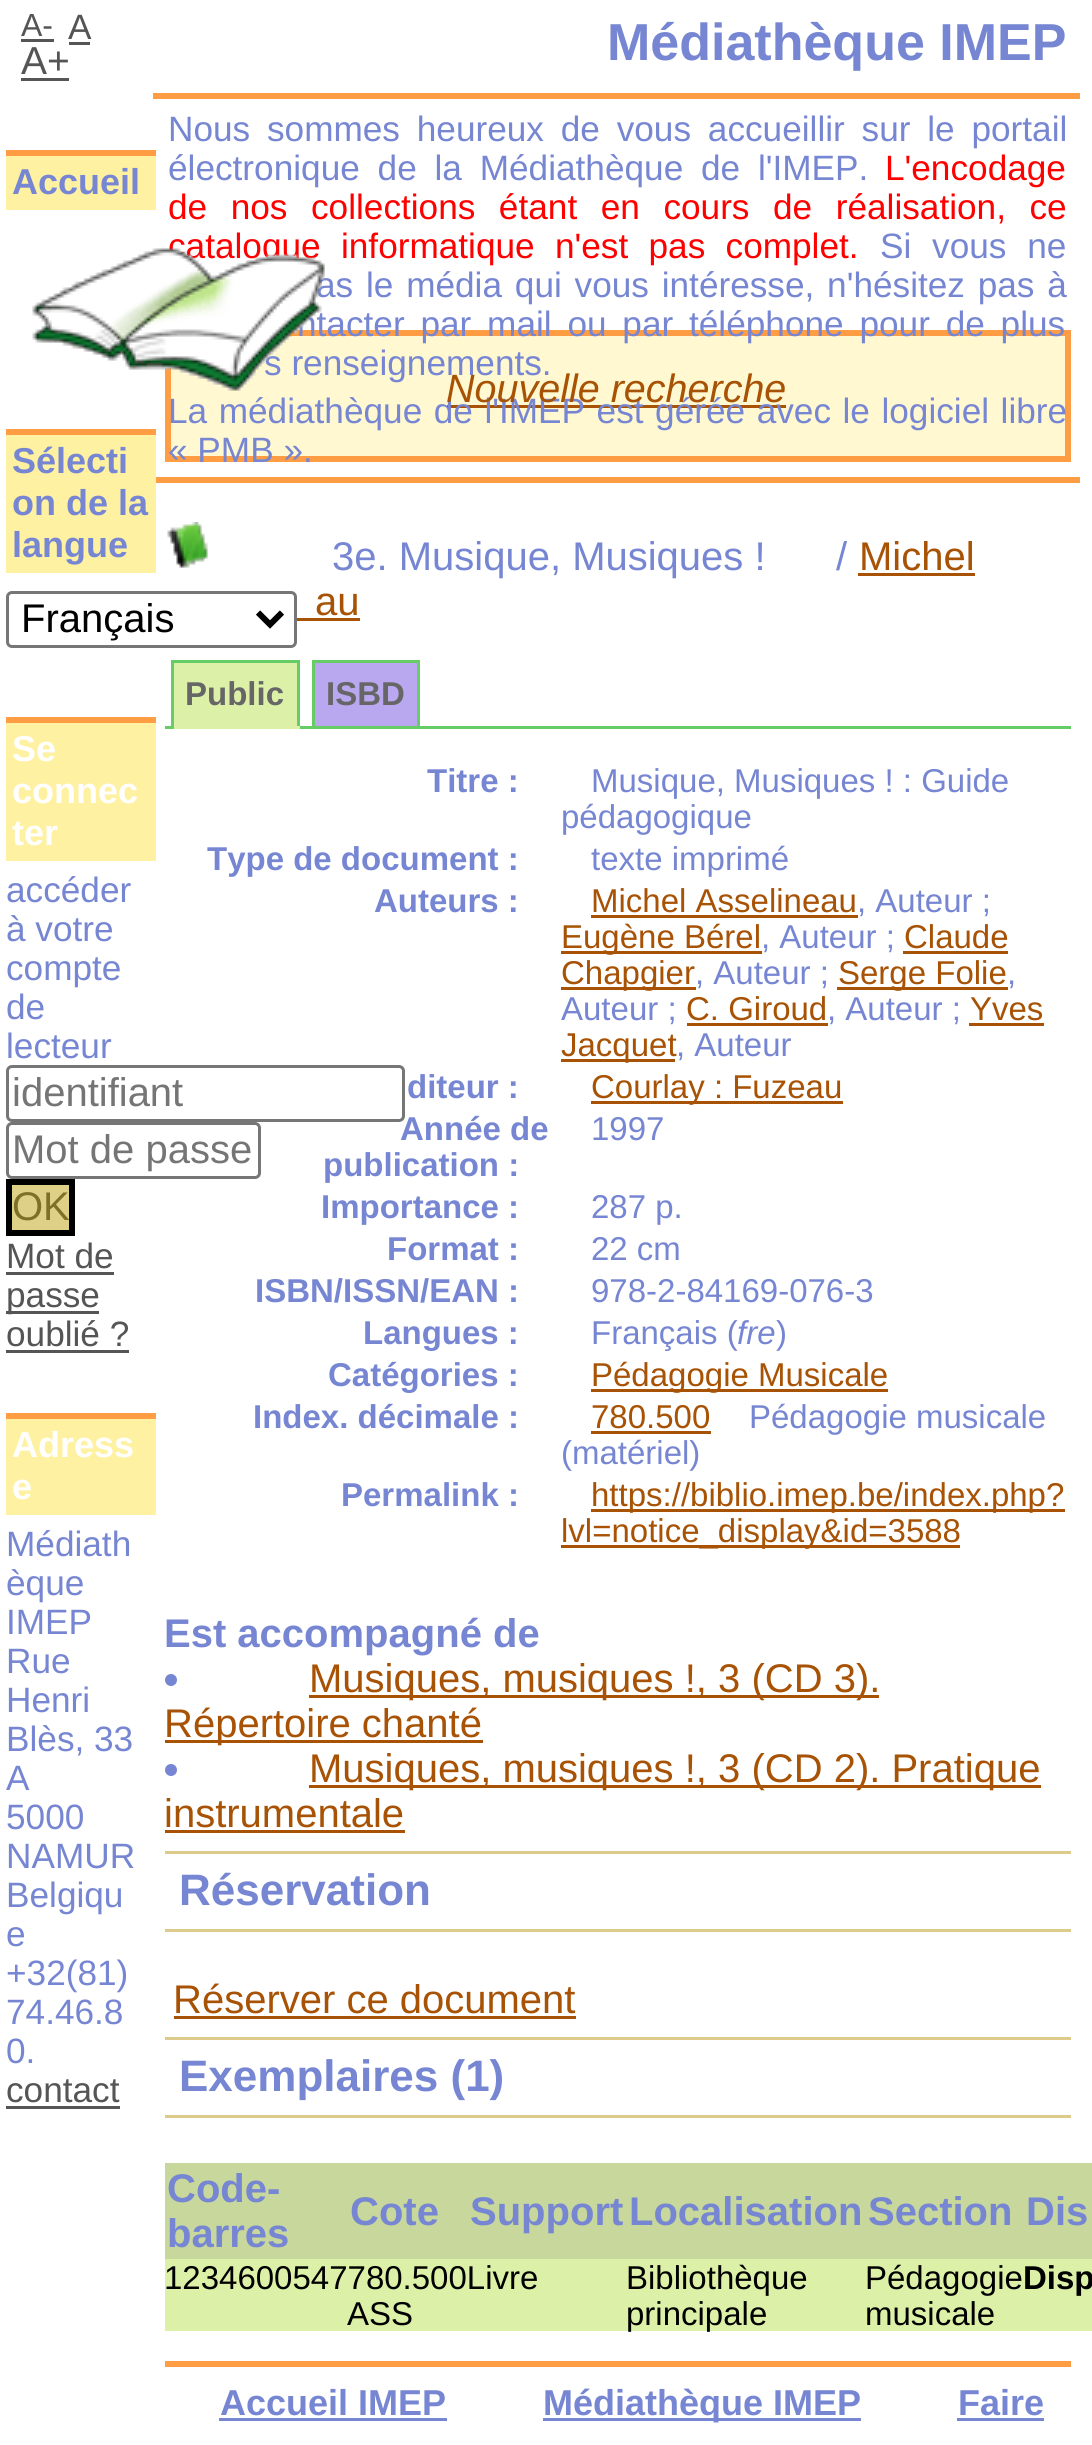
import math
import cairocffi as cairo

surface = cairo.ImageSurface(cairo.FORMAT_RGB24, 1092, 2445)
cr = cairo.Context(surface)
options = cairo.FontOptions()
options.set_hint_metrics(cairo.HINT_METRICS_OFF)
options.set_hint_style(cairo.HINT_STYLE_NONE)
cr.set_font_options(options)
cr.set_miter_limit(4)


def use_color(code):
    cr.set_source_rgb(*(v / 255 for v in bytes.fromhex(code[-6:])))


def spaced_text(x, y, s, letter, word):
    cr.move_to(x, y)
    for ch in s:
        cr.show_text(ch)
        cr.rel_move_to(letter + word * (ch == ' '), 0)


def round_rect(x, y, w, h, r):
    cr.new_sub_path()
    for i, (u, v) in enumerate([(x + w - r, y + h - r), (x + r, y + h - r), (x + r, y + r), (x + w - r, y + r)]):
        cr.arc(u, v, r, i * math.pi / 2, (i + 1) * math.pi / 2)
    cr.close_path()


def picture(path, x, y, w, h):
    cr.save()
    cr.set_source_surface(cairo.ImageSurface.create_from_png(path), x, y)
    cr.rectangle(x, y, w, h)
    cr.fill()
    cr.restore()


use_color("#ffffff")
cr.paint()
cr.select_font_face("Liberation Sans")
cr.set_font_size(32)
use_color("#555555")
cr.move_to(21, 36)
cr.show_text("A-")
cr.rectangle(21, 39, 33, 3)
cr.fill()
cr.set_font_size(35.2)
cr.move_to(68, 39)
cr.show_text("A")
cr.rectangle(69, 42, 21, 3)
cr.fill()
cr.set_font_size(39)
cr.move_to(21, 74)
cr.show_text("A+")
cr.rectangle(21, 78, 48, 3)
cr.fill()
use_color("#fff1a2")
cr.rectangle(6, 156, 150, 54)
cr.fill()
use_color("#fe9d43")
cr.rectangle(6, 150, 150, 6)
cr.fill()
cr.select_font_face("Liberation Sans", cairo.FONT_SLANT_NORMAL, cairo.FONT_WEIGHT_BOLD)
cr.set_font_size(36)
use_color("#7686d2")
cr.move_to(12, 194)
cr.show_text("Accueil")
cr.select_font_face("Liberation Sans")
cr.set_font_size(35.2)
use_color("#ff0000")
spaced_text(168, 258, "catalogue informatique n'est pas complet.", 0, 10.5)
use_color("#7686d2")
spaced_text(316, 297, "as le média qui vous intéresse, n'hésitez pas à", 0, 3)
use_color("#fff8d1")
cr.rectangle(168, 333, 900, 126)
cr.fill_preserve()
use_color("#fe9d43")
cr.set_line_width(6)
cr.stroke()
use_color("#7686d2")
spaced_text(297, 336, "ntacter par mail ou par téléphone pour de plus", 0, 6)
cr.move_to(264, 375)
cr.show_text("s renseignements.")
picture("img1.png", 32, 248, 293, 143)
use_color("#fe9d43")
cr.rectangle(153, 477, 927, 6)
cr.fill()
use_color("#fff1a2")
cr.rectangle(6, 435, 150, 138)
cr.fill()
use_color("#fe9d43")
cr.rectangle(6, 429, 150, 6)
cr.fill()
cr.select_font_face("Liberation Sans", cairo.FONT_SLANT_NORMAL, cairo.FONT_WEIGHT_BOLD)
cr.set_font_size(36)
use_color("#7686d2")
cr.move_to(12, 473)
cr.show_text("Sélecti")
cr.move_to(12, 515)
cr.show_text("on de la")
cr.move_to(12, 557)
cr.show_text("langue")
round_rect(7.5, 592.5, 288, 54, 4.5)
use_color("#767676")
cr.set_line_width(3)
cr.stroke()
cr.new_path()
cr.move_to(258, 612.5)
cr.line_to(270, 624.5)
cr.line_to(282, 612.5)
use_color("#000000")
cr.set_line_width(6)
cr.stroke()
cr.select_font_face("Liberation Sans")
cr.set_font_size(40)
cr.move_to(21, 632)
cr.show_text("Français")
use_color("#fff1a2")
cr.rectangle(6, 723, 150, 138)
cr.fill()
use_color("#fe9d43")
cr.rectangle(6, 717, 150, 6)
cr.fill()
cr.select_font_face("Liberation Sans", cairo.FONT_SLANT_NORMAL, cairo.FONT_WEIGHT_BOLD)
cr.set_font_size(36)
use_color("#ffffff")
cr.move_to(12, 761)
cr.show_text("Se")
cr.move_to(12, 803)
cr.show_text("connec")
cr.move_to(12, 845)
cr.show_text("ter")
cr.select_font_face("Liberation Sans")
cr.set_font_size(35.2)
use_color("#7686d2")
cr.move_to(6, 902)
cr.show_text("accéder")
cr.move_to(6, 941)
cr.show_text("à votre")
cr.move_to(6, 980)
cr.show_text("compte")
cr.move_to(6, 1019)
cr.show_text("de")
cr.move_to(6, 1058)
cr.show_text("lecteur")
cr.select_font_face("Liberation Sans", cairo.FONT_SLANT_NORMAL, cairo.FONT_WEIGHT_BOLD)
cr.set_font_size(33)
cr.move_to(400, 1140)
cr.show_text("Année de")
round_rect(7.5, 1066.5, 396, 54, 4.5)
use_color("#767676")
cr.set_line_width(3)
cr.stroke()
cr.select_font_face("Liberation Sans")
cr.set_font_size(40)
use_color("#757575")
cr.move_to(12, 1106)
cr.show_text("identifiant")
round_rect(7.5, 1123.5, 252, 54, 4.5)
use_color("#767676")
cr.stroke()
use_color("#757575")
cr.move_to(12, 1163)
cr.show_text("Mot de passe")
use_color("#dfd087")
cr.rectangle(9, 1182, 63, 51)
cr.fill_preserve()
use_color("#000000")
cr.set_line_width(6)
cr.stroke()
use_color("#7f7027")
cr.move_to(12, 1220)
cr.show_text("OK")
cr.set_font_size(35.2)
use_color("#555555")
cr.move_to(6, 1268)
cr.show_text("Mot de")
cr.rectangle(6, 1272, 108, 3)
cr.fill()
cr.rectangle(6, 1311, 93, 3)
cr.fill()
cr.move_to(6, 1307)
cr.show_text("passe")
cr.move_to(6, 1346)
cr.show_text("oublié ?")
cr.rectangle(6, 1350, 123, 3)
cr.fill()
use_color("#fff1a2")
cr.rectangle(6, 1419, 150, 96)
cr.fill()
use_color("#fe9d43")
cr.rectangle(6, 1413, 150, 6)
cr.fill()
cr.select_font_face("Liberation Sans", cairo.FONT_SLANT_NORMAL, cairo.FONT_WEIGHT_BOLD)
cr.set_font_size(36)
use_color("#ffffff")
cr.move_to(12, 1457)
cr.show_text("Adress")
cr.move_to(12, 1499)
cr.show_text("e")
cr.select_font_face("Liberation Sans")
cr.set_font_size(35.2)
use_color("#7686d2")
cr.move_to(6, 1556)
cr.show_text("Médiath")
cr.move_to(6, 1595)
cr.show_text("èque")
cr.move_to(6, 1634)
cr.show_text("IMEP")
cr.move_to(6, 1673)
cr.show_text("Rue")
cr.move_to(6, 1712)
cr.show_text("Henri")
cr.move_to(6, 1751)
cr.show_text("Blès, 33")
cr.move_to(6, 1790)
cr.show_text("A")
cr.move_to(6, 1829)
cr.show_text("5000")
cr.move_to(6, 1868)
cr.show_text("NAMUR")
cr.move_to(6, 1907)
cr.show_text("Belgiqu")
cr.move_to(6, 1946)
cr.show_text("e")
cr.move_to(6, 1985)
cr.show_text("+32(81)")
cr.move_to(6, 2024)
cr.show_text("74.46.8")
cr.move_to(6, 2063)
cr.show_text("0.")
use_color("#555555")
cr.move_to(6, 2102)
cr.show_text("contact")
cr.rectangle(6, 2106, 114, 3)
cr.fill()
use_color("#fe9d43")
cr.rectangle(153, 93, 927, 6)
cr.fill()
cr.select_font_face("Liberation Sans", cairo.FONT_SLANT_NORMAL, cairo.FONT_WEIGHT_BOLD)
cr.set_font_size(52)
use_color("#7686d2")
cr.move_to(607, 60)
cr.show_text("Médiathèque IMEP")
cr.select_font_face("Liberation Sans")
cr.set_font_size(35.2)
spaced_text(168, 141, "Nous sommes heureux de vous accueillir sur le portail", 0, 7)
spaced_text(168, 180, "électronique de la Médiathèque de l'IMEP.", 0, 8)
use_color("#ff0000")
cr.move_to(885, 180)
cr.show_text("L'encodage")
spaced_text(168, 219, "de nos collections étant en cours de réalisation, ce", 0, 13.75)
use_color("#7686d2")
spaced_text(880, 258, "Si vous ne", 0, 11)
use_color("#a75204")
cr.rectangle(447, 405, 339, 3)
cr.fill()
use_color("#7686d2")
spaced_text(168, 423, "La médiathèque de l'IMEP est gérée avec le logiciel libre", 0, 1.75)
cr.move_to(168, 462)
cr.show_text("« PMB ».")
cr.select_font_face("Liberation Sans", cairo.FONT_SLANT_ITALIC)
cr.set_font_size(39.5)
use_color("#a75204")
cr.move_to(446, 402)
cr.show_text("Nouvelle recherche")
picture("img2.png", 167, 522, 41, 46)
cr.select_font_face("Liberation Sans")
cr.set_font_size(40)
use_color("#7686d2")
cr.move_to(332, 570)
cr.show_text("3e. Musique, Musiques !")
cr.move_to(836, 570)
cr.show_text("/")
use_color("#a75204")
cr.move_to(859, 570)
cr.show_text("Michel")
cr.rectangle(858, 573, 117, 3)
cr.fill()
cr.move_to(315, 615)
cr.show_text("au")
cr.rectangle(297, 618, 63, 3)
cr.fill()
use_color("#66cc66")
cr.rectangle(165, 726, 906, 3)
cr.fill()
use_color("#ddf0a7")
cr.rectangle(174, 663, 123, 63)
cr.fill()
use_color("#66cc66")
cr.rectangle(171, 660, 129, 3)
cr.fill()
cr.rectangle(297, 660, 3, 69)
cr.fill()
use_color("#ddf0a7")
cr.rectangle(171, 726, 129, 3)
cr.fill()
use_color("#66cc66")
cr.rectangle(171, 660, 3, 69)
cr.fill()
cr.select_font_face("Liberation Sans", cairo.FONT_SLANT_NORMAL, cairo.FONT_WEIGHT_BOLD)
cr.set_font_size(33)
use_color("#666666")
cr.move_to(185, 705)
cr.show_text("Public")
use_color("#b9a8f0")
cr.rectangle(313.5, 661.5, 105, 66)
cr.fill_preserve()
use_color("#66cc66")
cr.set_line_width(3)
cr.stroke()
use_color("#666666")
cr.move_to(326, 705)
cr.show_text("ISBD")
use_color("#7686d2")
cr.move_to(427, 792)
cr.show_text("Titre :")
cr.select_font_face("Liberation Sans")
cr.move_to(591, 792)
cr.show_text("Musique, Musiques ! : Guide")
cr.move_to(561, 828)
cr.show_text("pédagogique")
cr.select_font_face("Liberation Sans", cairo.FONT_SLANT_NORMAL, cairo.FONT_WEIGHT_BOLD)
cr.move_to(207, 870)
cr.show_text("Type de document :")
cr.select_font_face("Liberation Sans")
cr.move_to(591, 870)
cr.show_text("texte imprimé")
cr.select_font_face("Liberation Sans", cairo.FONT_SLANT_NORMAL, cairo.FONT_WEIGHT_BOLD)
cr.move_to(374, 912)
cr.show_text("Auteurs :")
cr.select_font_face("Liberation Sans")
use_color("#a75204")
cr.move_to(591, 912)
cr.show_text("Michel Asselineau")
use_color("#7686d2")
cr.move_to(857, 912)
cr.show_text(", Auteur ;")
use_color("#a75204")
cr.rectangle(591, 915, 267, 3)
cr.fill()
cr.rectangle(561, 951, 201, 3)
cr.fill()
cr.move_to(561, 948)
cr.show_text("Eugène Bérel")
use_color("#7686d2")
cr.move_to(761, 948)
cr.show_text(", Auteur ;")
use_color("#a75204")
cr.move_to(904, 948)
cr.show_text("Claude")
cr.rectangle(903, 951, 105, 3)
cr.fill()
cr.rectangle(561, 987, 135, 3)
cr.fill()
cr.move_to(561, 984)
cr.show_text("Chapgier")
use_color("#7686d2")
cr.move_to(695, 984)
cr.show_text(", Auteur ;")
use_color("#a75204")
cr.rectangle(837, 987, 171, 3)
cr.fill()
cr.move_to(838, 984)
cr.show_text("Serge Folie")
use_color("#7686d2")
cr.move_to(1007, 984)
cr.show_text(",")
cr.move_to(561, 1020)
cr.show_text("Auteur ;")
use_color("#a75204")
cr.move_to(686, 1020)
cr.show_text("C. Giroud")
use_color("#7686d2")
cr.move_to(827, 1020)
cr.show_text(", Auteur ;")
use_color("#a75204")
cr.rectangle(687, 1023, 141, 3)
cr.fill()
cr.move_to(970, 1020)
cr.show_text("Yves")
cr.rectangle(969, 1023, 75, 3)
cr.fill()
cr.rectangle(561, 1059, 114, 3)
cr.fill()
cr.move_to(561, 1056)
cr.show_text("Jacquet")
use_color("#7686d2")
cr.move_to(676, 1056)
cr.show_text(", Auteur")
cr.select_font_face("Liberation Sans", cairo.FONT_SLANT_NORMAL, cairo.FONT_WEIGHT_BOLD)
cr.move_to(407, 1098)
cr.show_text("diteur :")
use_color("#a75204")
cr.rectangle(591, 1101, 252, 3)
cr.fill()
cr.select_font_face("Liberation Sans")
cr.move_to(591, 1098)
cr.show_text("Courlay : Fuzeau")
cr.select_font_face("Liberation Sans", cairo.FONT_SLANT_NORMAL, cairo.FONT_WEIGHT_BOLD)
use_color("#7686d2")
cr.move_to(323, 1176)
cr.show_text("publication :")
cr.select_font_face("Liberation Sans")
cr.move_to(591, 1140)
cr.show_text("1997")
cr.select_font_face("Liberation Sans", cairo.FONT_SLANT_NORMAL, cairo.FONT_WEIGHT_BOLD)
cr.move_to(321, 1218)
cr.show_text("Importance :")
cr.select_font_face("Liberation Sans")
cr.move_to(591, 1218)
cr.show_text("287 p.")
cr.select_font_face("Liberation Sans", cairo.FONT_SLANT_NORMAL, cairo.FONT_WEIGHT_BOLD)
cr.move_to(387, 1260)
cr.show_text("Format :")
cr.select_font_face("Liberation Sans")
cr.move_to(591, 1260)
cr.show_text("22 cm")
cr.select_font_face("Liberation Sans", cairo.FONT_SLANT_NORMAL, cairo.FONT_WEIGHT_BOLD)
cr.move_to(255, 1302)
cr.show_text("ISBN/ISSN/EAN :")
cr.select_font_face("Liberation Sans")
cr.move_to(591, 1302)
cr.show_text("978-2-84169-076-3")
cr.select_font_face("Liberation Sans", cairo.FONT_SLANT_NORMAL, cairo.FONT_WEIGHT_BOLD)
cr.move_to(363, 1344)
cr.show_text("Langues :")
cr.select_font_face("Liberation Sans")
cr.move_to(591, 1344)
cr.show_text("Français (")
cr.select_font_face("Liberation Sans", cairo.FONT_SLANT_ITALIC)
cr.move_to(737, 1344)
cr.show_text("fre")
cr.select_font_face("Liberation Sans")
cr.move_to(776, 1344)
cr.show_text(")")
cr.select_font_face("Liberation Sans", cairo.FONT_SLANT_NORMAL, cairo.FONT_WEIGHT_BOLD)
cr.move_to(328, 1386)
cr.show_text("Catégories :")
use_color("#a75204")
cr.rectangle(591, 1389, 297, 3)
cr.fill()
cr.select_font_face("Liberation Sans")
cr.move_to(591, 1386)
cr.show_text("Pédagogie Musicale")
cr.select_font_face("Liberation Sans", cairo.FONT_SLANT_NORMAL, cairo.FONT_WEIGHT_BOLD)
use_color("#7686d2")
cr.move_to(253, 1428)
cr.show_text("Index. décimale :")
cr.select_font_face("Liberation Sans")
use_color("#a75204")
cr.move_to(591, 1428)
cr.show_text("780.500")
cr.rectangle(591, 1431, 120, 3)
cr.fill()
use_color("#7686d2")
cr.move_to(749, 1428)
cr.show_text("Pédagogie musicale")
cr.move_to(561, 1464)
cr.show_text("(matériel)")
cr.select_font_face("Liberation Sans", cairo.FONT_SLANT_NORMAL, cairo.FONT_WEIGHT_BOLD)
cr.move_to(341, 1506)
cr.show_text("Permalink :")
use_color("#a75204")
cr.rectangle(591, 1509, 474, 3)
cr.fill()
cr.select_font_face("Liberation Sans")
cr.move_to(591, 1506)
cr.show_text("https://biblio.imep.be/index.php?")
cr.rectangle(561, 1545, 399, 3)
cr.fill()
cr.move_to(561, 1542)
cr.show_text("lvl=notice_display&id=3588")
cr.select_font_face("Liberation Sans", cairo.FONT_SLANT_NORMAL, cairo.FONT_WEIGHT_BOLD)
cr.set_font_size(40)
use_color("#7686d2")
cr.move_to(164, 1647)
cr.show_text("Est accompagné de")
cr.new_path()
cr.arc(171, 1680, 6, 0, 2 * math.pi)
cr.fill()
use_color("#a75204")
cr.rectangle(309, 1695, 570, 3)
cr.fill()
cr.select_font_face("Liberation Sans")
cr.move_to(309, 1692)
cr.show_text("Musiques, musiques !, 3 (CD 3).")
cr.rectangle(165, 1740, 318, 3)
cr.fill()
cr.move_to(164, 1737)
cr.show_text("Répertoire chanté")
use_color("#7686d2")
cr.new_path()
cr.arc(171, 1770, 6, 0, 2 * math.pi)
cr.fill()
use_color("#a75204")
cr.rectangle(309, 1785, 732, 3)
cr.fill()
cr.move_to(309, 1782)
cr.show_text("Musiques, musiques !, 3 (CD 2). Pratique")
cr.move_to(164, 1827)
cr.show_text("instrumentale")
cr.rectangle(165, 1830, 240, 3)
cr.fill()
use_color("#ddcb8c")
cr.rectangle(165, 1851, 906, 3)
cr.fill()
cr.rectangle(165, 1929, 906, 3)
cr.fill()
cr.select_font_face("Liberation Sans", cairo.FONT_SLANT_NORMAL, cairo.FONT_WEIGHT_BOLD)
cr.set_font_size(44)
use_color("#7686d2")
cr.move_to(179, 1905)
cr.show_text("Réservation")
cr.select_font_face("Liberation Sans")
cr.set_font_size(40)
use_color("#a75204")
cr.move_to(173, 2013)
cr.show_text("Réserver ce document")
cr.rectangle(174, 2016, 402, 3)
cr.fill()
use_color("#ddcb8c")
cr.rectangle(165, 2037, 906, 3)
cr.fill()
cr.rectangle(165, 2115, 906, 3)
cr.fill()
cr.select_font_face("Liberation Sans", cairo.FONT_SLANT_NORMAL, cairo.FONT_WEIGHT_BOLD)
cr.set_font_size(44)
use_color("#7686d2")
cr.move_to(179, 2091)
cr.show_text("Exemplaires (1)")
use_color("#c8d79b")
cr.rectangle(165, 2163, 927, 96)
cr.fill()
cr.set_font_size(40)
use_color("#7686d2")
cr.move_to(167, 2202)
cr.show_text("Code-")
cr.move_to(167, 2247)
cr.show_text("barres")
cr.move_to(350, 2225)
cr.show_text("Cote")
cr.move_to(470, 2225)
cr.show_text("Support")
cr.move_to(629, 2225)
cr.show_text("Localisation")
cr.move_to(868, 2225)
cr.show_text("Section")
cr.move_to(1026, 2225)
cr.show_text("Dis")
use_color("#ddf0a7")
cr.rectangle(165, 2259, 927, 72)
cr.fill()
cr.select_font_face("Liberation Sans")
cr.set_font_size(33)
use_color("#000000")
cr.move_to(164, 2289)
cr.show_text("1234600547780.500Livre")
cr.move_to(626, 2289)
cr.show_text("Bibliothèque")
cr.move_to(626, 2325)
cr.show_text("principale")
cr.move_to(865, 2289)
cr.show_text("Pédagogie")
cr.move_to(865, 2325)
cr.show_text("musicale")
cr.select_font_face("Liberation Sans", cairo.FONT_SLANT_NORMAL, cairo.FONT_WEIGHT_BOLD)
cr.move_to(1023, 2289)
cr.show_text("Disp")
cr.select_font_face("Liberation Sans")
cr.move_to(347, 2325)
cr.show_text("ASS")
use_color("#fe9d43")
cr.rectangle(165, 2361, 906, 6)
cr.fill()
cr.select_font_face("Liberation Sans", cairo.FONT_SLANT_NORMAL, cairo.FONT_WEIGHT_BOLD)
cr.set_font_size(36)
use_color("#7686d2")
cr.move_to(220, 2415)
cr.show_text("Accueil IMEP")
cr.rectangle(219, 2418, 228, 3)
cr.fill()
cr.rectangle(543, 2418, 318, 3)
cr.fill()
cr.move_to(543, 2415)
cr.show_text("Médiathèque IMEP")
cr.move_to(958, 2415)
cr.show_text("Faire")
cr.rectangle(957, 2418, 87, 3)
cr.fill()
surface.write_to_png("result.png")
